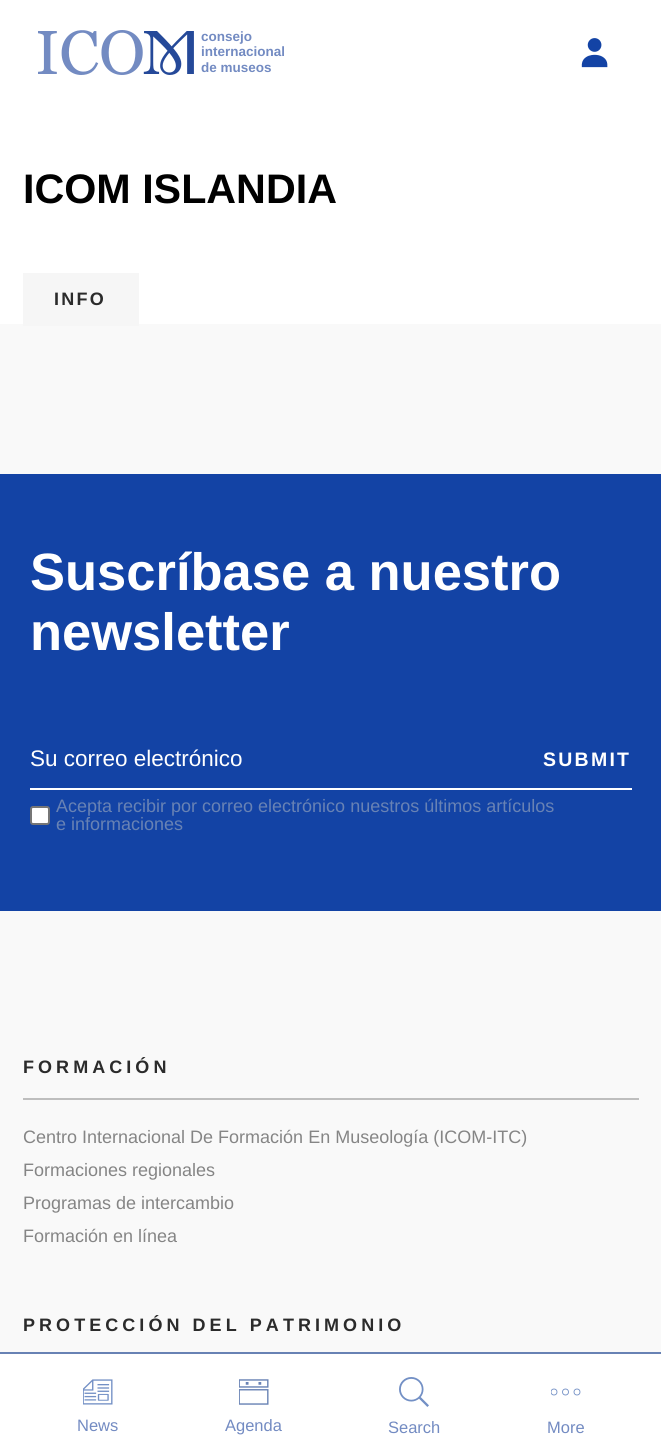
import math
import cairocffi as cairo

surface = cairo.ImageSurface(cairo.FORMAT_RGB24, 661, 1456)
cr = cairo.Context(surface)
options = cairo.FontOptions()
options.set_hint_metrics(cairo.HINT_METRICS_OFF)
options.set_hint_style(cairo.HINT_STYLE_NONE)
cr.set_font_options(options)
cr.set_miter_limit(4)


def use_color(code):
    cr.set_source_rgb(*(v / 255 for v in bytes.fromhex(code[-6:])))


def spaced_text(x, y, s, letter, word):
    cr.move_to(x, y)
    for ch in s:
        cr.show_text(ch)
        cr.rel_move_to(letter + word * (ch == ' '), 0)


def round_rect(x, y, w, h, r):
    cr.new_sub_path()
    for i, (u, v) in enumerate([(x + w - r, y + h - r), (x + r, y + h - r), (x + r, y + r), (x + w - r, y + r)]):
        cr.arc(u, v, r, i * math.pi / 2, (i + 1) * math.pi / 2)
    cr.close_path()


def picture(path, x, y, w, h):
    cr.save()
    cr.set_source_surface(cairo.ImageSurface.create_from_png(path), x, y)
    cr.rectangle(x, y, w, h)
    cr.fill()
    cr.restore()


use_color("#f9f9f9")
cr.paint()
use_color("#ffffff")
cr.rectangle(0, 0, 661, 324)
cr.fill()
picture("img1.png", 38, 30, 156, 45)
cr.select_font_face("Liberation Sans", cairo.FONT_SLANT_NORMAL, cairo.FONT_WEIGHT_BOLD)
cr.set_font_size(13.5)
use_color("#738bc2")
cr.move_to(201, 41)
cr.show_text("consejo")
cr.move_to(201, 56)
cr.show_text("internacional")
cr.move_to(201, 72)
cr.show_text("de museos")
picture("img2.png", 581, 38, 27, 30)
use_color("#ffffff")
cr.rectangle(0, 1354, 661, 102)
cr.fill()
use_color("#6882b4")
cr.rectangle(0, 1352, 661, 2)
cr.fill()
picture("img3.png", 83, 1379, 30, 26)
cr.select_font_face("Liberation Sans")
cr.set_font_size(16.5)
use_color("#738bc2")
cr.move_to(77, 1431)
cr.show_text("News")
picture("img4.png", 239, 1379, 30, 26)
cr.move_to(225, 1431)
cr.show_text("Agenda")
picture("img5.png", 399, 1377, 30, 30)
cr.move_to(388, 1433)
cr.show_text("Search")
cr.save()
cr.rectangle(551, 1370, 30, 45)
cr.clip()
cr.arc(554, 1392, 3, 0, 2 * math.pi)
use_color("#7390c5")
cr.set_line_width(0.9)
cr.stroke()
cr.restore()
cr.arc(565.5, 1392, 3, 0, 2 * math.pi)
use_color("#7390c5")
cr.set_line_width(0.9)
cr.stroke()
cr.arc(577, 1392, 3, 0, 2 * math.pi)
cr.stroke()
use_color("#738bc2")
cr.move_to(547, 1433)
cr.show_text("More")
cr.select_font_face("Liberation Sans", cairo.FONT_SLANT_NORMAL, cairo.FONT_WEIGHT_BOLD)
cr.set_font_size(41.25)
use_color("#000000")
cr.move_to(23, 203)
cr.show_text("ICOM ISLANDIA")
use_color("#f6f6f6")
cr.rectangle(23, 273, 116, 53)
cr.fill()
cr.set_font_size(18)
use_color("#2b2b2b")
spaced_text(54, 305, "INFO", 2.25, 0)
use_color("#1343a5")
cr.rectangle(0, 474, 661, 437)
cr.fill()
cr.set_font_size(52.5)
use_color("#ffffff")
cr.move_to(30, 590)
cr.show_text("Suscríbase a nuestro")
cr.move_to(30, 650)
cr.show_text("newsletter")
cr.rectangle(30, 788, 602, 2)
cr.fill()
cr.select_font_face("Liberation Sans")
cr.set_font_size(22.5)
cr.move_to(30, 766)
cr.show_text("Su correo electrónico")
round_rect(31, 807, 18, 17, 2)
cr.fill_preserve()
use_color("#767676")
cr.set_line_width(2)
cr.stroke()
cr.set_font_size(18)
use_color("#6882b4")
cr.move_to(56, 812)
cr.show_text("Acepta recibir por correo electrónico nuestros últimos artículos")
cr.move_to(56, 830)
cr.show_text("e informaciones")
cr.select_font_face("Liberation Sans", cairo.FONT_SLANT_NORMAL, cairo.FONT_WEIGHT_BOLD)
cr.set_font_size(19.5)
use_color("#ffffff")
spaced_text(543, 766, "SUBMIT", 2.25, 0)
cr.set_font_size(18)
use_color("#2b2b2b")
spaced_text(23, 1073, "FORMACIÓN", 4.05, 0)
use_color("#bebebe")
cr.rectangle(23, 1098, 616, 2)
cr.fill()
cr.select_font_face("Liberation Sans")
use_color("#858585")
cr.move_to(23, 1143)
cr.show_text("Centro Internacional De Formación En Museología (ICOM-ITC)")
cr.move_to(23, 1176)
cr.show_text("Formaciones regionales")
cr.move_to(23, 1209)
cr.show_text("Programas de intercambio")
cr.move_to(23, 1242)
cr.show_text("Formación en línea")
cr.select_font_face("Liberation Sans", cairo.FONT_SLANT_NORMAL, cairo.FONT_WEIGHT_BOLD)
use_color("#2b2b2b")
spaced_text(23, 1331, "PROTECCIÓN DEL PATRIMONIO", 4.05, 0)
surface.write_to_png("result.png")
